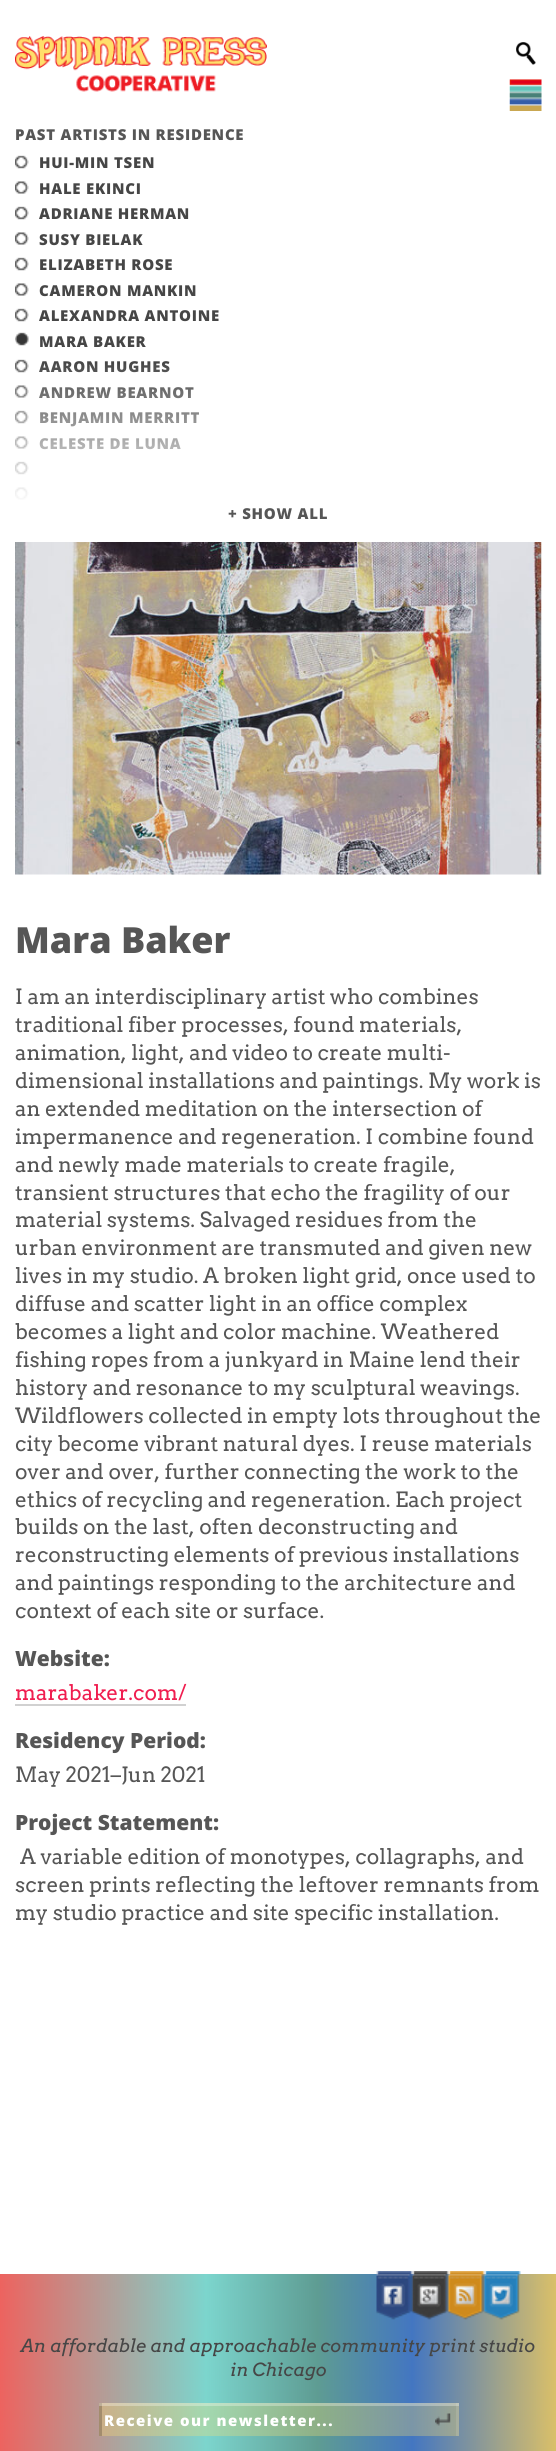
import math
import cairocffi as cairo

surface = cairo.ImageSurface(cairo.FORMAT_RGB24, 556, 2451)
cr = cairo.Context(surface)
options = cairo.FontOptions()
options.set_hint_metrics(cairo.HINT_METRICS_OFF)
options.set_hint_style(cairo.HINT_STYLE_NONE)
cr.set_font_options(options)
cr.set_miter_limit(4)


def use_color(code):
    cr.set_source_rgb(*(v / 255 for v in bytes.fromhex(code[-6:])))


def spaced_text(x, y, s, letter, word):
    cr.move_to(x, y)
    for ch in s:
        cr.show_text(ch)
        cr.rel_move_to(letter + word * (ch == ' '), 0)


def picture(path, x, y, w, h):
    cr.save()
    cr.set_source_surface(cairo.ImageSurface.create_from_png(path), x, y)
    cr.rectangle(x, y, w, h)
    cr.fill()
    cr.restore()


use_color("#ffffff")
cr.paint()
picture("img1.png", 509, 79, 33, 32)
picture("img2.png", 15, 36, 252, 56)
picture("img3.png", 516, 42, 20, 23)
cr.select_font_face("Open Sans ExtraBold")
cr.set_font_size(15)
use_color("#565656")
spaced_text(15, 140, "PAST ARTISTS IN RESIDENCE", 0.75, 0)
picture("img4.png", 15, 155, 14, 14)
use_color("#464646")
spaced_text(39, 168, "HUI-MIN TSEN", 0.75, 0)
picture("img5.png", 15, 181, 14, 13)
spaced_text(39, 194, "HALE EKINCI", 0.75, 0)
picture("img6.png", 15, 206, 14, 14)
spaced_text(39, 219, "ADRIANE HERMAN", 0.75, 0)
picture("img7.png", 15, 232, 14, 13)
spaced_text(39, 245, "SUSY BIELAK", 0.75, 0)
picture("img8.png", 15, 257, 14, 14)
spaced_text(39, 270, "ELIZABETH ROSE", 0.75, 0)
picture("img9.png", 15, 283, 14, 13)
spaced_text(39, 296, "CAMERON MANKIN", 0.75, 0)
picture("img10.png", 15, 308, 14, 14)
spaced_text(39, 321, "ALEXANDRA ANTOINE", 0.75, 0)
picture("img11.png", 15, 332, 14, 14)
spaced_text(39, 347, "MARA BAKER", 0.75, 0)
picture("img6.png", 15, 359, 14, 14)
spaced_text(39, 372, "AARON HUGHES", 0.75, 0)
picture("img12.png", 15, 385, 14, 13)
spaced_text(39, 398, "ANDREW BEARNOT", 0.75, 0)
picture("img13.png", 15, 410, 14, 14)
spaced_text(39, 423, "BENJAMIN MERRITT", 0.75, 0)
picture("img14.png", 15, 436, 14, 13)
spaced_text(39, 449, "CELESTE DE LUNA", 0.75, 0)
picture("img15.png", 15, 461, 14, 14)
picture("img16.png", 15, 487, 14, 13)
gradient = cairo.LinearGradient(278, 361, 278, 542)
gradient.add_color_stop_rgba(0, 1, 1, 1, 0)
gradient.add_color_stop_rgba(0.8, 1, 1, 1, 1)
cr.set_source(gradient)
cr.rectangle(15, 364, 184, 136)
cr.fill()
use_color("#565656")
spaced_text(228, 519, "+ SHOW ALL", 0.75, 0)
picture("img17.png", 15, 542, 527, 333)
cr.set_font_size(36)
cr.move_to(15, 953)
cr.show_text("Mara Baker")
cr.select_font_face("Arvo")
cr.set_font_size(21)
cr.move_to(15, 1004)
cr.show_text("I am an interdisciplinary artist who combines")
cr.move_to(15, 1032)
cr.show_text("traditional fiber processes, found materials,")
cr.move_to(15, 1060)
cr.show_text("animation, light, and video to create multi-")
cr.move_to(15, 1088)
cr.show_text("dimensional installations and paintings. My work is")
cr.move_to(15, 1116)
cr.show_text("an extended meditation on the intersection of")
cr.move_to(15, 1144)
cr.show_text("impermanence and regeneration. I combine found")
cr.move_to(15, 1172)
cr.show_text("and newly made materials to create fragile,")
cr.move_to(15, 1200)
cr.show_text("transient structures that echo the fragility of our")
cr.move_to(15, 1227)
cr.show_text("material systems. Salvaged residues from the")
cr.move_to(15, 1255)
cr.show_text("urban environment are transmuted and given new")
cr.move_to(15, 1283)
cr.show_text("lives in my studio. A broken light grid, once used to")
cr.move_to(15, 1311)
cr.show_text("diffuse and scatter light in an office complex")
cr.move_to(15, 1339)
cr.show_text("becomes a light and color machine. Weathered")
cr.move_to(15, 1367)
cr.show_text("fishing ropes from a junkyard in Maine lend their")
cr.move_to(15, 1395)
cr.show_text("history and resonance to my sculptural weavings.")
cr.move_to(15, 1423)
cr.show_text("Wildflowers collected in empty lots throughout the")
cr.move_to(15, 1451)
cr.show_text("city become vibrant natural dyes. I reuse materials")
cr.move_to(15, 1479)
cr.show_text("over and over, further connecting the work to the")
cr.move_to(15, 1507)
cr.show_text("ethics of recycling and regeneration. Each project")
cr.move_to(15, 1534)
cr.show_text("builds on the last, often deconstructing and")
cr.move_to(15, 1562)
cr.show_text("reconstructing elements of previous installations")
cr.move_to(15, 1590)
cr.show_text("and paintings responding to the architecture and")
cr.move_to(15, 1618)
cr.show_text("context of each site or surface.")
cr.select_font_face("Open Sans ExtraBold")
cr.move_to(15, 1666)
cr.show_text("Website:")
cr.select_font_face("Arvo")
use_color("#f01d4f")
cr.move_to(15, 1700)
cr.show_text("marabaker.com/")
use_color("#d1d1d1")
cr.rectangle(15, 1704, 171, 2)
cr.fill()
cr.select_font_face("Open Sans ExtraBold")
use_color("#565656")
cr.move_to(15, 1748)
cr.show_text("Residency Period:")
cr.select_font_face("Arvo")
cr.move_to(15, 1782)
cr.show_text("May 2021–Jun 2021")
cr.select_font_face("Open Sans ExtraBold")
cr.move_to(15, 1830)
cr.show_text("Project Statement:")
cr.select_font_face("Arvo")
cr.move_to(20, 1864)
cr.show_text("A variable edition of monotypes, collagraphs, and")
cr.move_to(15, 1892)
cr.show_text("screen prints reflecting the leftover remnants from")
cr.move_to(15, 1920)
cr.show_text("my studio practice and site specific installation.")
gradient = cairo.LinearGradient(0, 2370, 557, 2370)
gradient.add_color_stop_rgba(0, 0.929, 0.388, 0.373, 1)
gradient.add_color_stop_rgba(0.37, 0.486, 0.835, 0.804, 1)
gradient.add_color_stop_rgba(0.57, 0.369, 0.612, 0.576, 1)
gradient.add_color_stop_rgba(0.74, 0.263, 0.463, 0.757, 1)
gradient.add_color_stop_rgba(1, 0.859, 0.753, 0.408, 1)
cr.set_source(gradient)
cr.rectangle(0, 2274, 556, 177)
cr.fill()
gradient = cairo.LinearGradient(0, 2370, 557, 2370)
gradient.add_color_stop_rgba(0, 0.949, 0.533, 0.388, 1)
gradient.add_color_stop_rgba(0.37, 0.639, 0.847, 0.69, 1)
gradient.add_color_stop_rgba(0.57, 0.557, 0.69, 0.529, 1)
gradient.add_color_stop_rgba(0.74, 0.482, 0.588, 0.655, 1)
gradient.add_color_stop_rgba(1, 0.902, 0.788, 0.412, 1)
cr.set_source(gradient)
cr.rectangle(102, 2406, 354, 30)
cr.fill()
gradient = cairo.LinearGradient(0, 2370, 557, 2370)
gradient.add_color_stop_rgba(0, 0.965, 0.675, 0.573, 1)
gradient.add_color_stop_rgba(0.37, 0.749, 0.894, 0.784, 1)
gradient.add_color_stop_rgba(0.57, 0.69, 0.784, 0.671, 1)
gradient.add_color_stop_rgba(0.74, 0.639, 0.714, 0.757, 1)
gradient.add_color_stop_rgba(1, 0.933, 0.851, 0.588, 1)
cr.set_source(gradient)
cr.rectangle(99, 2403, 360, 3)
cr.fill()
picture("img18.png", 376, 2271, 37, 49)
picture("img19.png", 412, 2271, 37, 49)
picture("img20.png", 448, 2271, 37, 49)
picture("img21.png", 484, 2271, 37, 49)
cr.select_font_face("Arvo", cairo.FONT_SLANT_ITALIC)
cr.set_font_size(18)
use_color("#464646")
cr.move_to(21, 2352)
cr.show_text("An affordable and approachable community print studio")
cr.move_to(230, 2376)
cr.show_text("in Chicago")
picture("img22.png", 435, 2413, 16, 13)
use_color("#a38c6d")
cr.rectangle(99, 2403, 3, 33)
cr.fill()
use_color("#bfaf99")
cr.rectangle(99, 2403, 3, 3)
cr.fill()
use_color("#a7af9f")
cr.rectangle(456, 2403, 3, 33)
cr.fill()
use_color("#c1c7bc")
cr.rectangle(456, 2403, 3, 3)
cr.fill()
cr.select_font_face("Open Sans ExtraBold")
cr.set_font_size(15)
use_color("#ffffff")
spaced_text(104, 2426, "Receive our newsletter...", 1.5, 0)
surface.write_to_png("result.png")
